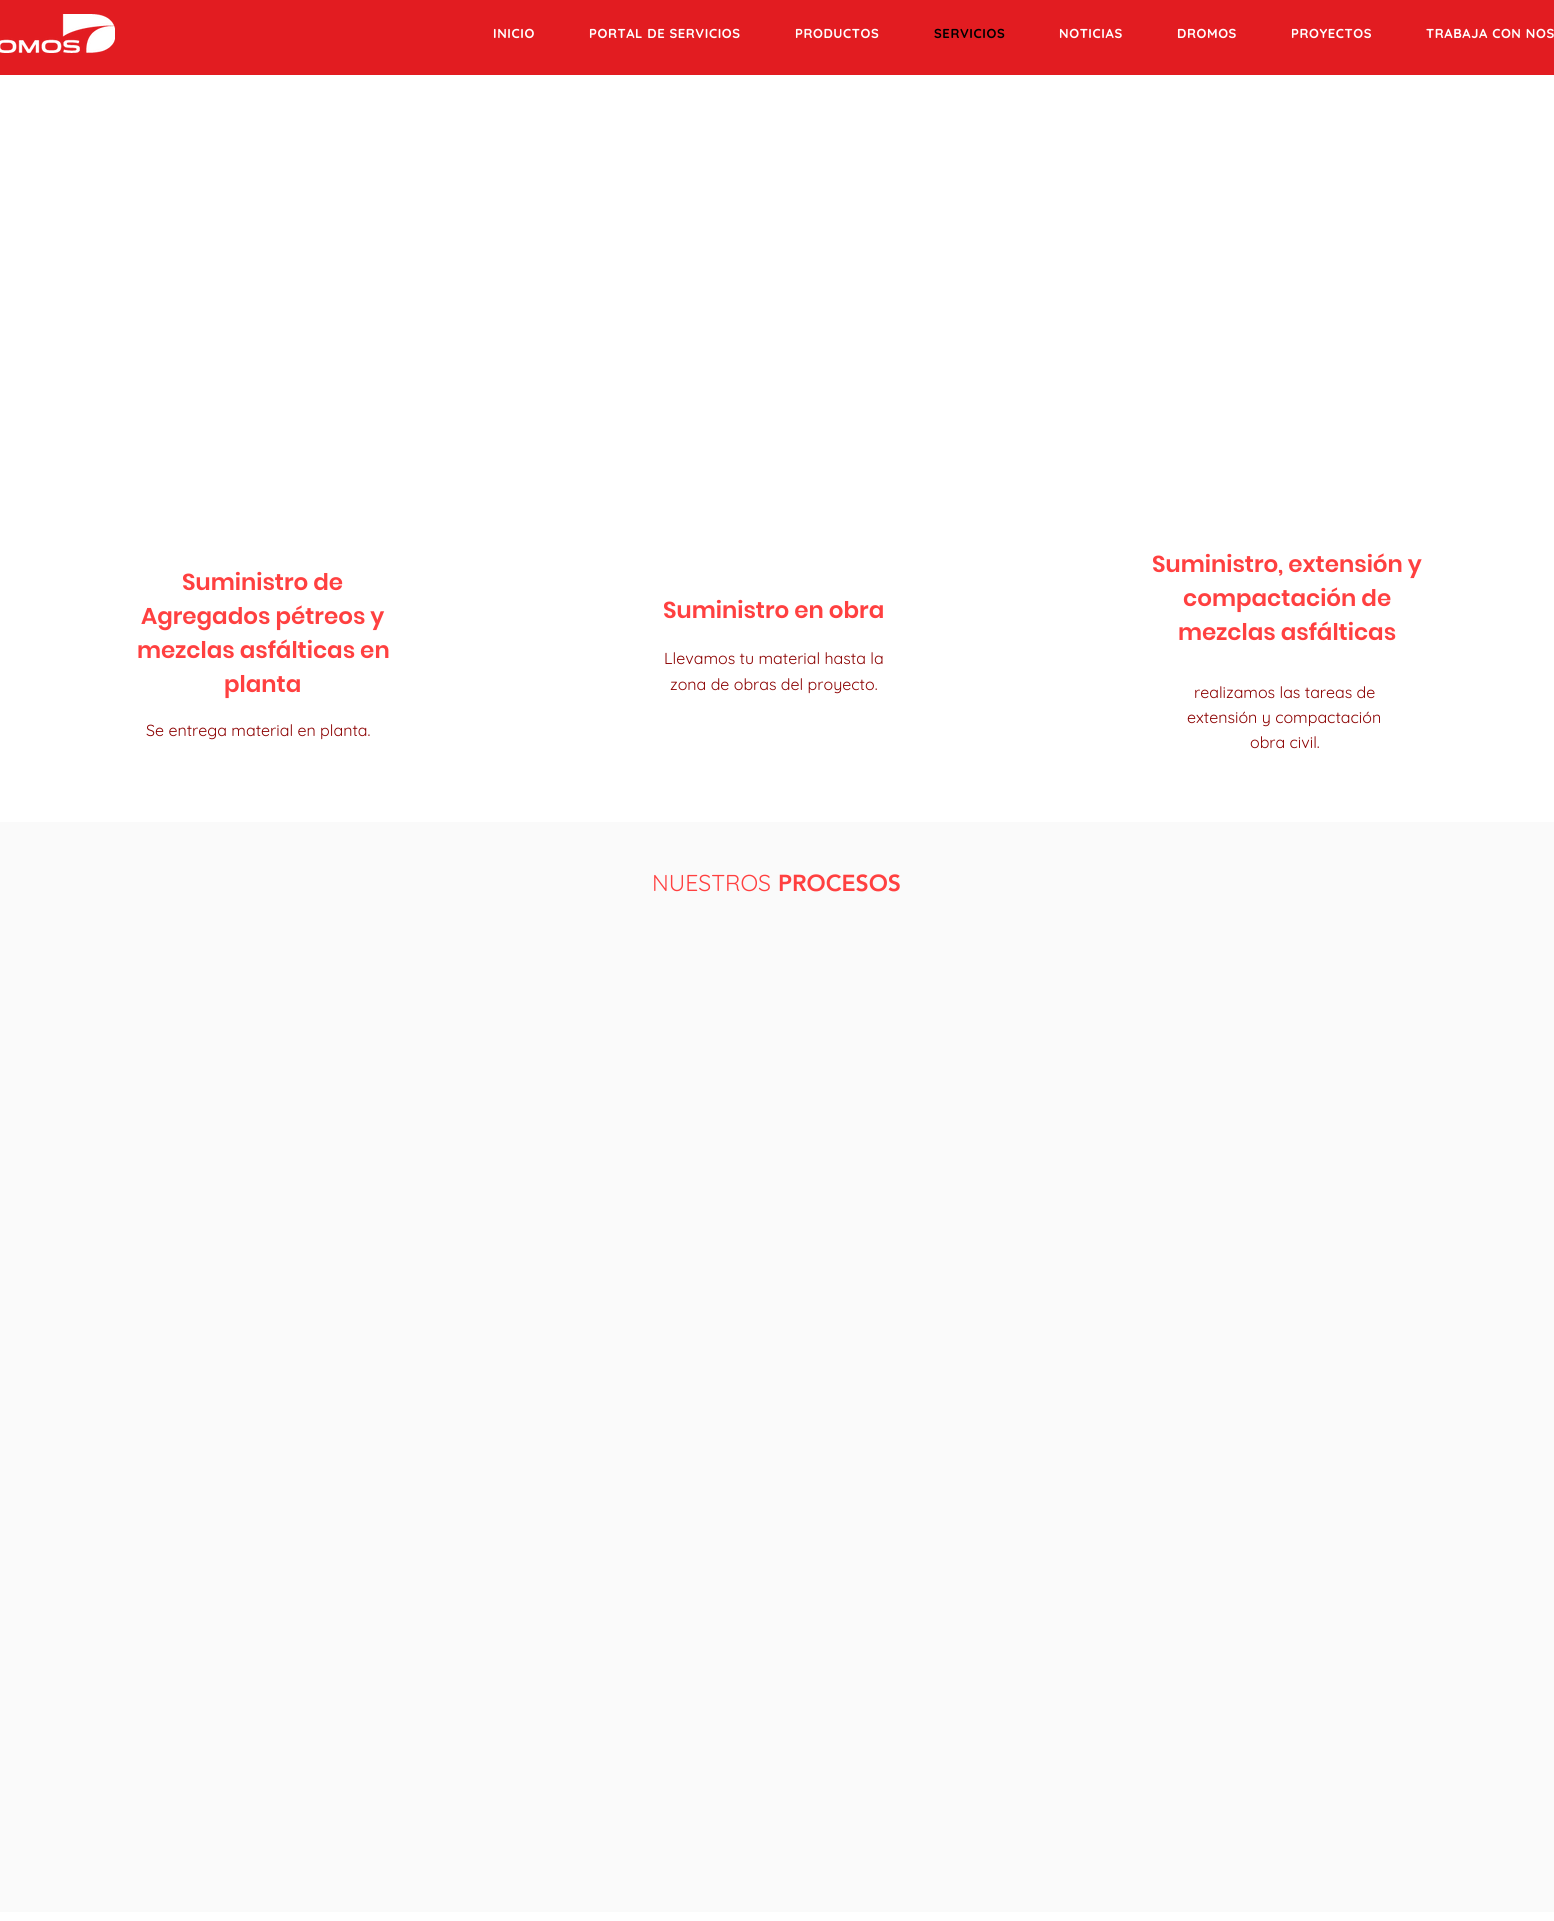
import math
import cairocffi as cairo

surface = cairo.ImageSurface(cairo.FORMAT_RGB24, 1554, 1921)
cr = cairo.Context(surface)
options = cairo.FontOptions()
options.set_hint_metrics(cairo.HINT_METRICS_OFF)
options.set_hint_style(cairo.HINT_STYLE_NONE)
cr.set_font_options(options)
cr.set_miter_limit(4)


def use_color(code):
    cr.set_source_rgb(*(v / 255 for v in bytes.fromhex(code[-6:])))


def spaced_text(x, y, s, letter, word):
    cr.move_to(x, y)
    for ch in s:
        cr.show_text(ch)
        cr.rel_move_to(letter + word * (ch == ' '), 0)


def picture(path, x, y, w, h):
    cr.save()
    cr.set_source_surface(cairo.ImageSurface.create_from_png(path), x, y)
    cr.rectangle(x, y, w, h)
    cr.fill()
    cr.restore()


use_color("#ffffff")
cr.paint()
use_color("#e21c21")
cr.rectangle(0, 0, 1554, 75)
cr.fill()
picture("img1.png", 0, 14, 115, 39)
cr.select_font_face("Quicksand", cairo.FONT_SLANT_NORMAL, cairo.FONT_WEIGHT_BOLD)
cr.set_font_size(13)
use_color("#ffffff")
spaced_text(493, 38, "INICIO", 0.6, 0)
spaced_text(589, 38, "PORTAL DE SERVICIOS", 0.6, 0)
spaced_text(795, 38, "PRODUCTOS", 0.6, 0)
use_color("#000000")
spaced_text(934, 38, "SERVICIOS", 0.6, 0)
use_color("#ffffff")
spaced_text(1059, 38, "NOTICIAS", 0.6, 0)
spaced_text(1177, 38, "DROMOS", 0.6, 0)
spaced_text(1291, 38, "PROYECTOS", 0.6, 0)
spaced_text(1426, 38, "TRABAJA CON NOS", 0.6, 0)
cr.select_font_face("Poppins SemiBold")
cr.set_font_size(23)
use_color("#ff4040")
cr.move_to(182, 590)
cr.show_text("Suministro de")
cr.move_to(141, 624)
cr.show_text("Agregados pétreos y")
cr.move_to(137, 658)
cr.show_text("mezclas asfálticas en")
cr.move_to(224, 692)
cr.show_text("planta")
cr.select_font_face("Quicksand")
cr.set_font_size(16)
use_color("#8b0000")
cr.move_to(146, 736)
cr.show_text("Se entrega material en planta.")
cr.select_font_face("Poppins SemiBold")
cr.set_font_size(23)
use_color("#ff4040")
cr.move_to(663, 618)
cr.show_text("Suministro en obra")
cr.select_font_face("Quicksand")
cr.set_font_size(16)
use_color("#8b0000")
cr.move_to(664, 664)
cr.show_text("Llevamos tu material hasta la")
cr.move_to(670, 690)
cr.show_text("zona de obras del proyecto.")
cr.select_font_face("Poppins SemiBold")
cr.set_font_size(23)
use_color("#ff4040")
cr.move_to(1152, 572)
cr.show_text("Suministro, extensión y")
cr.move_to(1183, 606)
cr.show_text("compactación de")
cr.move_to(1178, 640)
cr.show_text("mezclas asfálticas")
cr.select_font_face("Quicksand")
cr.set_font_size(16)
use_color("#8b0000")
cr.move_to(1194, 698)
cr.show_text("realizamos las tareas de")
cr.move_to(1187, 723)
cr.show_text("extensión y compactación")
cr.move_to(1250, 748)
cr.show_text("obra civil.")
use_color("#fafafa")
cr.rectangle(0, 822, 1554, 1090)
cr.fill()
cr.set_font_size(23)
use_color("#ff4040")
cr.move_to(652, 891)
cr.show_text("NUESTROS")
cr.select_font_face("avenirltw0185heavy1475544 Black")
cr.move_to(778, 891)
cr.show_text("PROCESOS")
surface.write_to_png("result.png")
